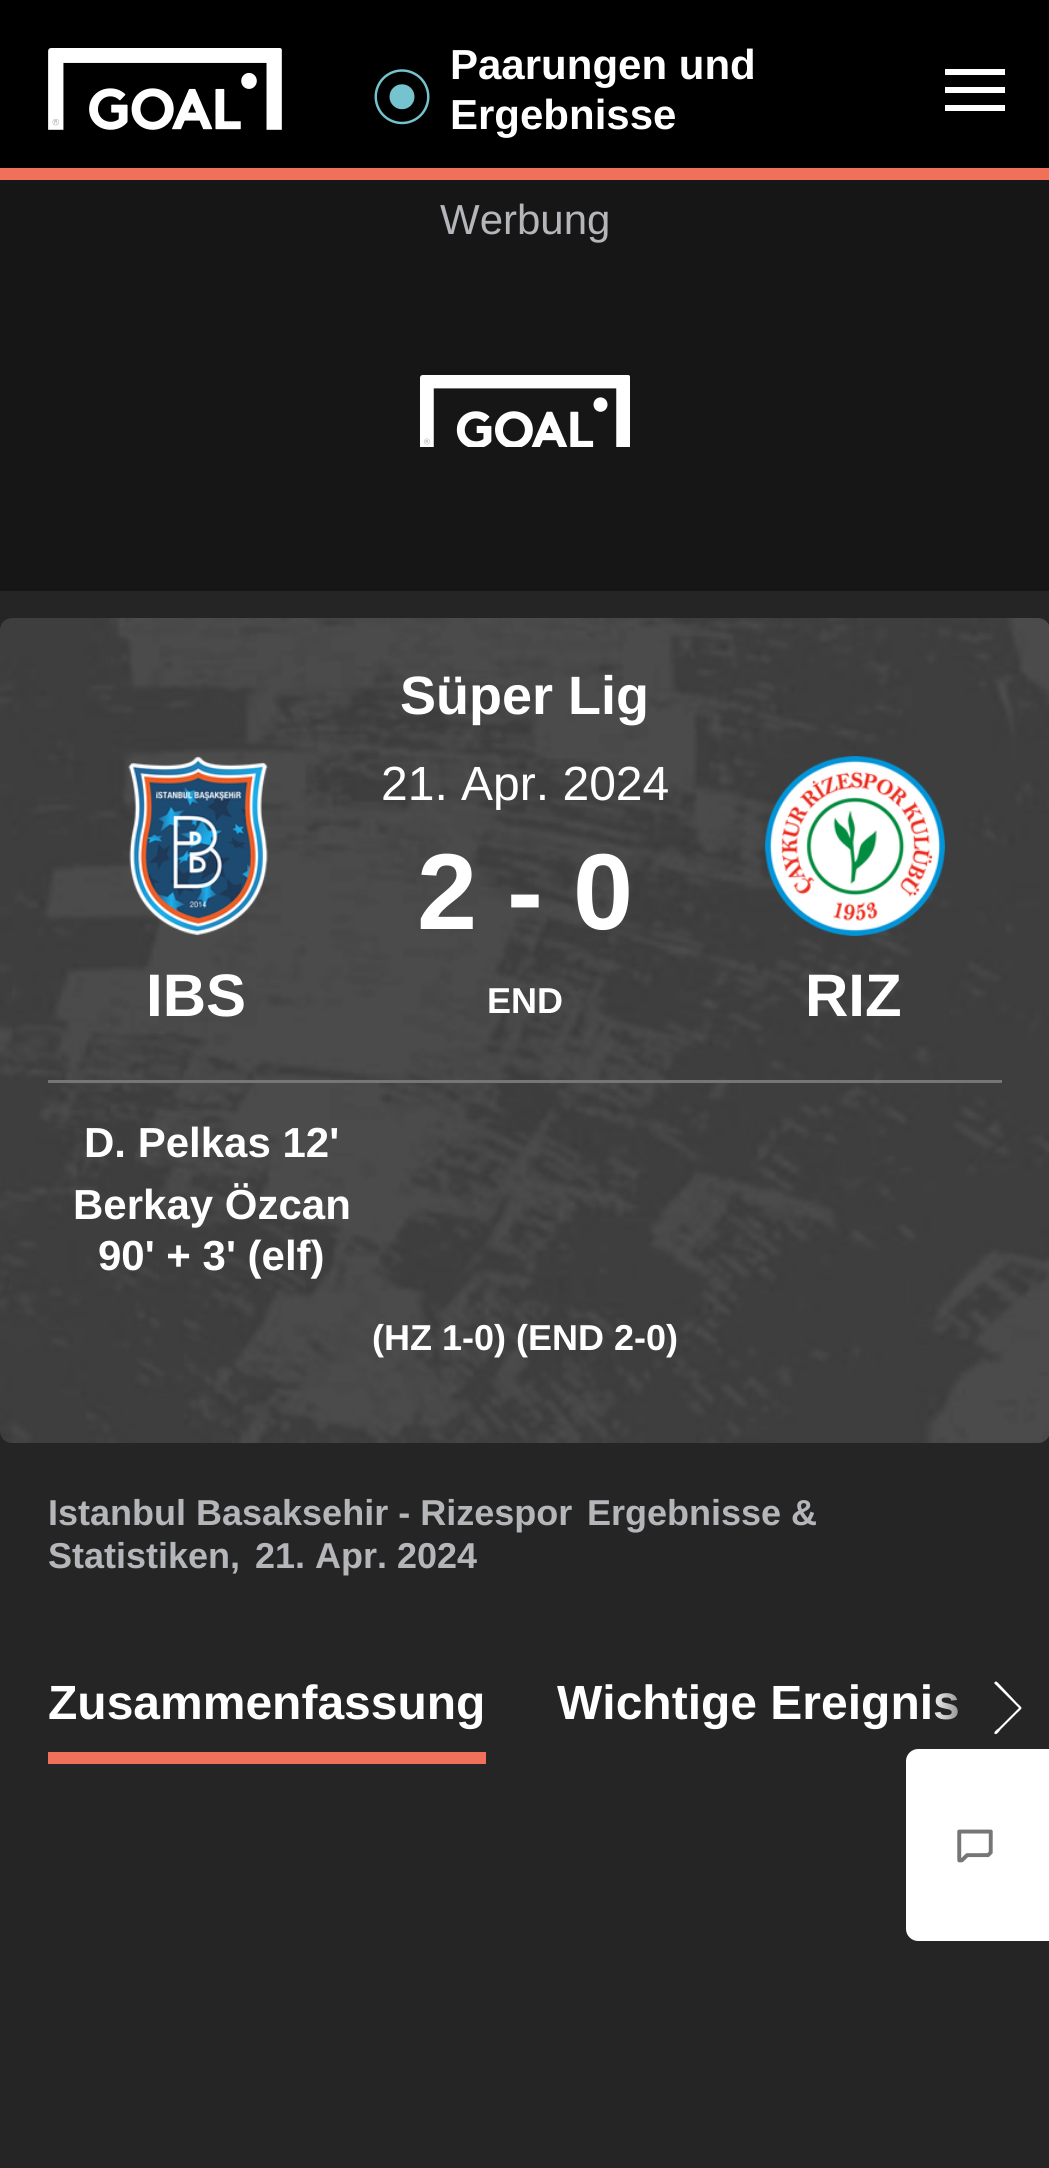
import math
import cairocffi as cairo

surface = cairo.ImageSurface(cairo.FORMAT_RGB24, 1049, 2168)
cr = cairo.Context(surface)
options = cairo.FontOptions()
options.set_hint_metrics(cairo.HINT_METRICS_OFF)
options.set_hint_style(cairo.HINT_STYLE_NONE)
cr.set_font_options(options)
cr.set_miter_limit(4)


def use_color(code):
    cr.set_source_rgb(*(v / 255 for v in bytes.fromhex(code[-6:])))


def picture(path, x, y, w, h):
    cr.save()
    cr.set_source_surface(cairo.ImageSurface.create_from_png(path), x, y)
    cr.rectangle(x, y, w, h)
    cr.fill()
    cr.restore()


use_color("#252525")
cr.paint()
use_color("#000000")
cr.rectangle(0, 0, 1049, 168)
cr.fill()
use_color("#f0705a")
cr.rectangle(0, 168, 1049, 12)
cr.fill()
picture("img1.png", 48, 48, 234, 82)
picture("img2.png", 374, 69, 56, 56)
cr.select_font_face("Liberation Sans", cairo.FONT_SLANT_NORMAL, cairo.FONT_WEIGHT_BOLD)
cr.set_font_size(42)
use_color("#ffffff")
cr.move_to(450, 79)
cr.show_text("Paarungen und")
cr.move_to(450, 129)
cr.show_text("Ergebnisse")
cr.rectangle(945, 69, 60, 6)
cr.fill()
cr.rectangle(945, 87, 60, 6)
cr.fill()
cr.rectangle(945, 105, 60, 6)
cr.fill()
use_color("#161617")
cr.rectangle(0, 180, 1049, 411)
cr.fill()
cr.select_font_face("Liberation Sans")
use_color("#b5b6ba")
cr.move_to(440, 234)
cr.show_text("Werbung")
picture("img3.png", 420, 375, 210, 72)
picture("img4.png", 0, 618, 1049, 825)
cr.select_font_face("Liberation Sans", cairo.FONT_SLANT_NORMAL, cairo.FONT_WEIGHT_BOLD)
cr.set_font_size(54)
use_color("#ffffff")
cr.move_to(400, 714)
cr.show_text("Süper Lig")
picture("img5.png", 128, 756, 140, 180)
cr.set_font_size(60)
cr.move_to(146, 1016)
cr.show_text("IBS")
cr.select_font_face("Liberation Sans")
cr.set_font_size(48)
cr.move_to(381, 800)
cr.show_text("21. Apr. 2024")
cr.select_font_face("Liberation Sans", cairo.FONT_SLANT_NORMAL, cairo.FONT_WEIGHT_BOLD)
cr.set_font_size(108)
cr.move_to(417, 929)
cr.show_text("2 - 0")
cr.set_font_size(36)
cr.move_to(487, 1013)
cr.show_text("END")
picture("img6.png", 765, 756, 180, 180)
cr.set_font_size(60)
cr.move_to(805, 1016)
cr.show_text("RIZ")
use_color("#767676")
cr.rectangle(48, 1080, 954, 3)
cr.fill()
cr.set_font_size(42)
use_color("#ffffff")
cr.move_to(84, 1157)
cr.show_text("D. Pelkas 12'")
cr.move_to(73, 1219)
cr.show_text("Berkay Özcan")
cr.move_to(98, 1270)
cr.show_text("90' + 3' (elf)")
cr.set_font_size(36)
cr.move_to(372, 1350)
cr.show_text("(HZ 1-0) (END 2-0)")
use_color("#b5b6ba")
cr.move_to(48, 1525)
cr.show_text("Istanbul Basaksehir - Rizespor")
cr.move_to(587, 1525)
cr.show_text("Ergebnisse &")
cr.move_to(48, 1568)
cr.show_text("Statistiken,")
cr.move_to(255, 1568)
cr.show_text("21. Apr. 2024")
use_color("#f0705a")
cr.rectangle(48, 1752, 438, 12)
cr.fill()
cr.set_font_size(48)
use_color("#ffffff")
cr.move_to(48, 1719)
cr.show_text("Zusammenfassung")
cr.move_to(557, 1719)
cr.show_text("Wichtige Ereignis")
gradient = cairo.LinearGradient(930, 1719, 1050, 1719)
gradient.add_color_stop_rgba(0, 0.145, 0.145, 0.145, 0)
gradient.add_color_stop_rgba(0.5, 0.145, 0.145, 0.145, 1)
gradient.add_color_stop_rgba(1, 0.145, 0.145, 0.145, 1)
cr.set_source(gradient)
cr.rectangle(935, 1693, 24, 27)
cr.fill()
use_color("#ffffff")
cr.new_path()
cr.move_to(995, 1682)
cr.line_to(994, 1683)
cr.line_to(1019, 1708)
cr.line_to(999, 1728)
cr.curve_to(996, 1730, 993, 1733, 995, 1734)
cr.curve_to(997, 1735, 1000, 1730, 1001, 1729)
cr.line_to(1017, 1713)
cr.curve_to(1023, 1707, 1023, 1709, 1017, 1703)
cr.line_to(1001, 1686)
cr.curve_to(999, 1684, 996, 1680, 995, 1682)
cr.close_path()
cr.fill()
cr.new_path()
cr.move_to(918, 1749)
cr.line_to(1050, 1749)
cr.line_to(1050, 1941)
cr.line_to(918, 1941)
cr.curve_to(911.5, 1941, 906, 1935.5, 906, 1929)
cr.line_to(906, 1761)
cr.curve_to(906, 1754.5, 911.5, 1749, 918, 1749)
cr.close_path()
cr.fill()
picture("img7.png", 957, 1829, 36, 34)
surface.write_to_png("result.png")
